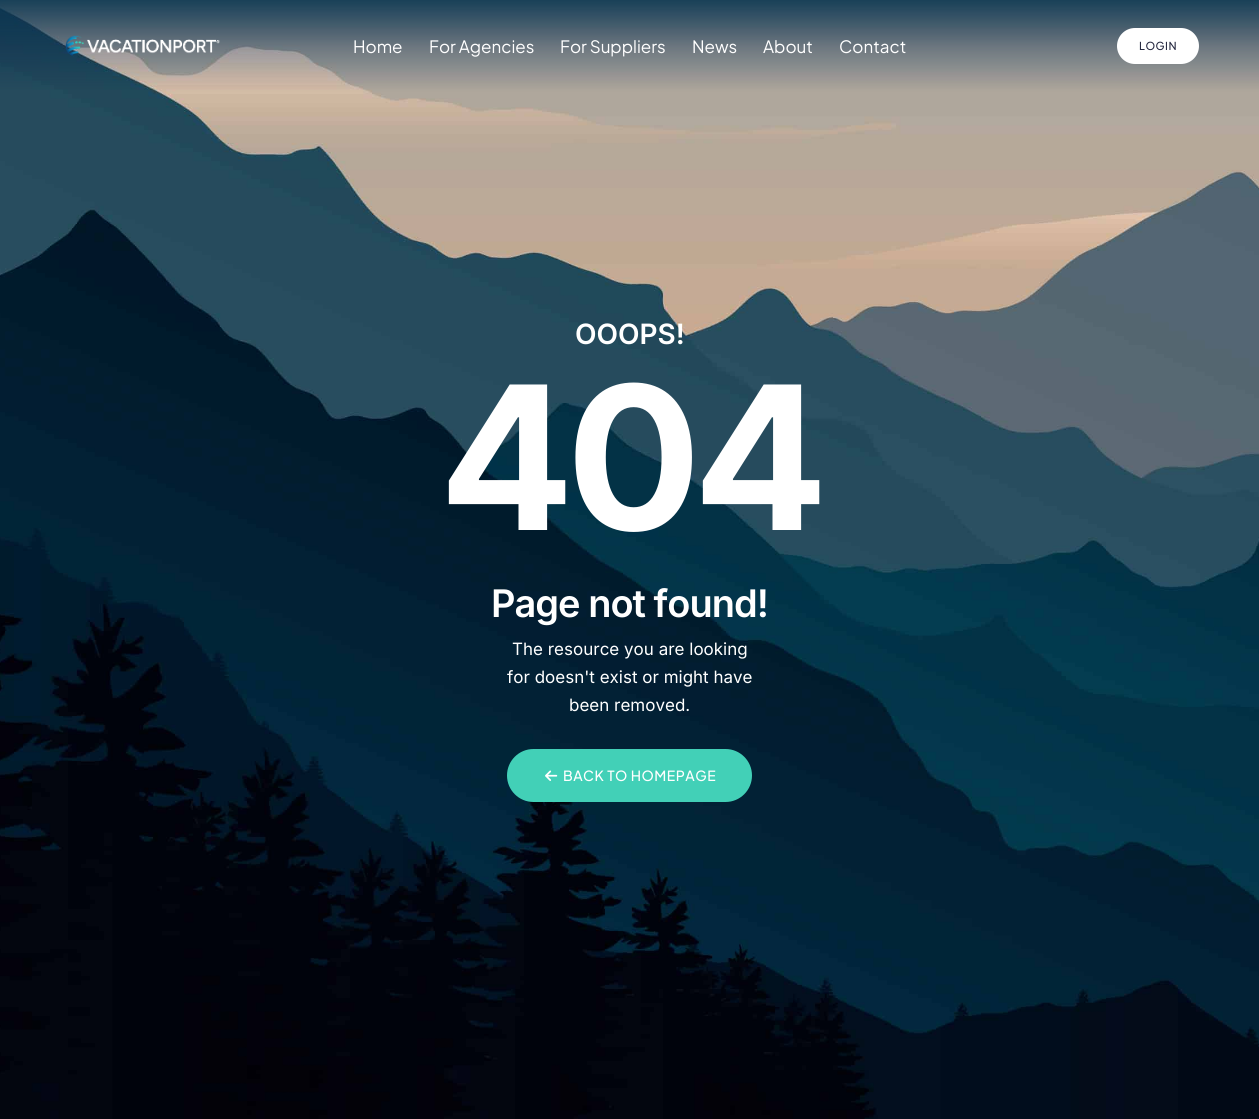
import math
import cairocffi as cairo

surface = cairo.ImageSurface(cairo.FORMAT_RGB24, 1259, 1119)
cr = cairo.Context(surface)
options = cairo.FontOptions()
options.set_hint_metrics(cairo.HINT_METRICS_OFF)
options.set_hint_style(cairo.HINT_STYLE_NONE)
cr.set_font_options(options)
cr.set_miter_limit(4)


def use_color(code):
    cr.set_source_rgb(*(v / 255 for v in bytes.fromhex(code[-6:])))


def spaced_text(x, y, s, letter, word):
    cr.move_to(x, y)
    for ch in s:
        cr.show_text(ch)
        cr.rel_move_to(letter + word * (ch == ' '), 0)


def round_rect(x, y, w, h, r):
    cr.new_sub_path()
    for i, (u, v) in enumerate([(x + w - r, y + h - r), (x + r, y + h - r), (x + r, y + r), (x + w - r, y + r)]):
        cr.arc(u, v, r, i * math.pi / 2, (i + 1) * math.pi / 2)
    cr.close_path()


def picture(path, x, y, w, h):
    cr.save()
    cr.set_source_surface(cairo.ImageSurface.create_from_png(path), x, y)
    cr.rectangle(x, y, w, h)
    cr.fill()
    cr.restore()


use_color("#ffffff")
cr.paint()
picture("img2.png", 0, 0, 1259, 1119)
picture("img1.png", 65, 35, 155, 22)
cr.select_font_face("Plus Jakarta Sans")
cr.set_font_size(17)
use_color("#ffffff")
cr.move_to(353, 53)
cr.show_text("Home")
cr.move_to(429, 53)
cr.show_text("For Agencies")
cr.move_to(560, 53)
cr.show_text("For Suppliers")
cr.move_to(692, 53)
cr.show_text("News")
cr.move_to(763, 53)
cr.show_text("About")
cr.move_to(839, 53)
cr.show_text("Contact")
round_rect(1117, 28, 82, 36, 18)
cr.fill()
cr.select_font_face("Plus Jakarta Sans Medium")
cr.set_font_size(11)
use_color("#252840")
spaced_text(1139, 50, "LOGIN", 0.5, 0)
cr.select_font_face("Inter SemiBold")
cr.set_font_size(28)
use_color("#ffffff")
cr.move_to(575, 344)
cr.show_text("OOOPS!")
cr.select_font_face("Inter", cairo.FONT_SLANT_NORMAL, cairo.FONT_WEIGHT_BOLD)
cr.set_font_size(200)
spaced_text(439, 530, "404", -8, 0)
cr.select_font_face("Inter SemiBold")
cr.set_font_size(38)
spaced_text(491, 617, "Page not found!", -1, 0)
cr.select_font_face("Inter")
cr.set_font_size(17)
cr.move_to(512, 655)
cr.show_text("The resource you are looking")
cr.move_to(507, 683)
cr.show_text("for doesn't exist or might have")
cr.move_to(569, 711)
cr.show_text("been removed.")
use_color("#42d0b7")
round_rect(507, 749, 245, 53, 26.5)
cr.fill()
picture("img3.png", 545, 770, 13, 11)
cr.select_font_face("Plus Jakarta Sans Medium")
cr.set_font_size(14)
use_color("#ffffff")
spaced_text(563, 781, "BACK TO HOMEPAGE", 0.5, 0)
surface.write_to_png("result.png")
